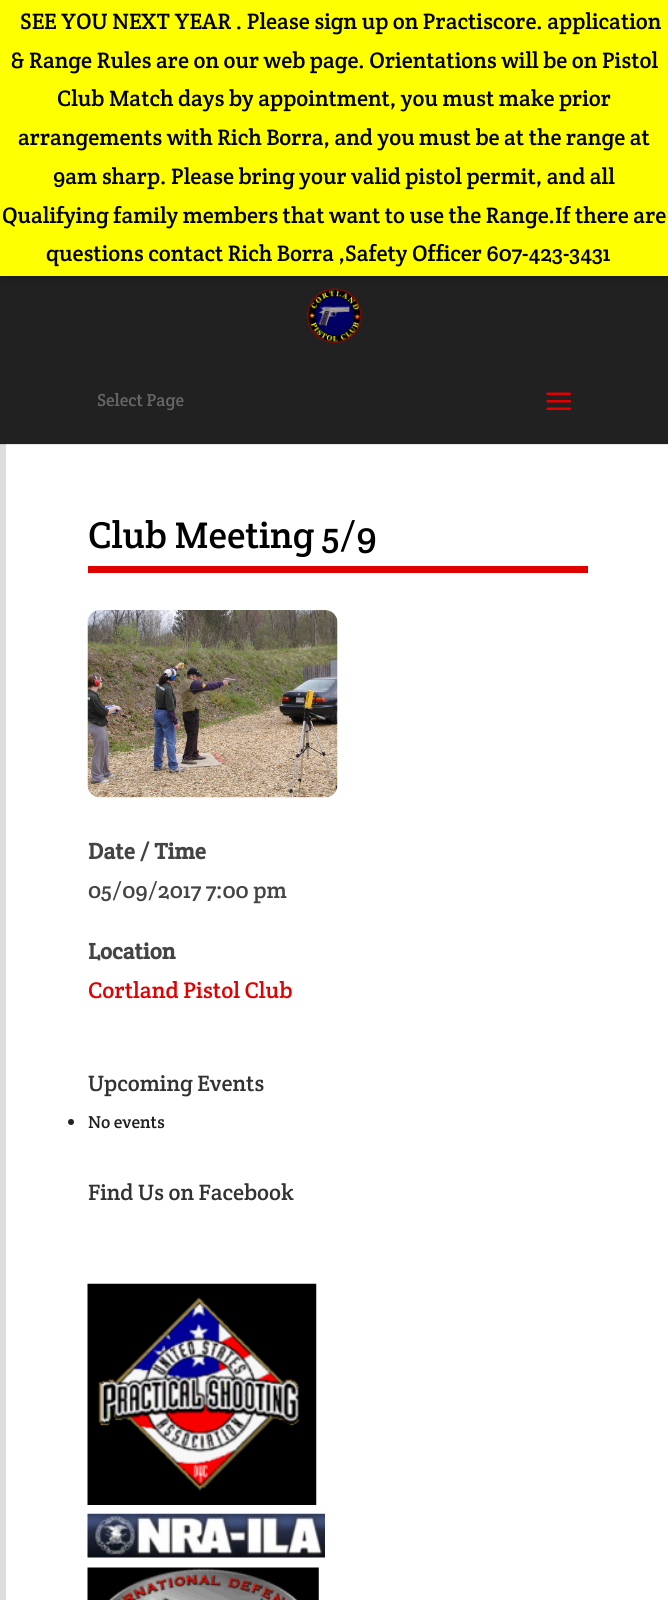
import math
import cairocffi as cairo

surface = cairo.ImageSurface(cairo.FORMAT_RGB24, 668, 1600)
cr = cairo.Context(surface)
options = cairo.FontOptions()
options.set_hint_metrics(cairo.HINT_METRICS_OFF)
options.set_hint_style(cairo.HINT_STYLE_NONE)
cr.set_font_options(options)
cr.set_miter_limit(4)


def use_color(code):
    cr.set_source_rgb(*(v / 255 for v in bytes.fromhex(code[-6:])))


def round_rect(x, y, w, h, r):
    cr.new_sub_path()
    for i, (u, v) in enumerate([(x + w - r, y + h - r), (x + r, y + h - r), (x + r, y + r), (x + w - r, y + r)]):
        cr.arc(u, v, r, i * math.pi / 2, (i + 1) * math.pi / 2)
    cr.close_path()


def shadow(x, y, w, h, r, blur, alpha):
    cr.push_group_with_content(cairo.CONTENT_ALPHA)
    cr.set_operator(cairo.OPERATOR_SOURCE)
    for i in range(15, -16, -2):
        e = blur * i / 6
        if min(w, h) + 2 * e > 0:
            cr.set_source_rgba(0, 0, 0, alpha * math.erfc((i - 1) / 8.5) / 2)
            round_rect(x - e, y - e, w + 2 * e, h + 2 * e, max(0, min(r + e + blur * .6, min(w, h) / 2 + e)))
            cr.fill()
    cr.mask(cr.pop_group())


def picture(path, x, y, w, h):
    cr.save()
    cr.set_source_surface(cairo.ImageSurface.create_from_png(path), x, y)
    cr.rectangle(x, y, w, h)
    cr.fill()
    cr.restore()


use_color("#ffffff")
cr.paint()
use_color("#212121")
cr.rectangle(0, 276, 668, 168)
cr.fill()
picture("img1.png", 307, 288, 55, 55)
use_color("#111111")
shadow(0, 0, 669, 276, 0, 4, 1)
use_color("#feff00")
cr.rectangle(0, 0, 668, 276)
cr.fill()
cr.select_font_face("Crete Round")
cr.set_font_size(22.5)
use_color("#000000")
cr.move_to(20, 29)
cr.show_text("SEE YOU NEXT YEAR . Please sign up on Practiscore. application")
cr.move_to(10, 68)
cr.show_text("& Range Rules are on our web page. Orientations will be on Pistol")
cr.move_to(57, 106)
cr.show_text("Club Match days by appointment, you must make prior")
cr.move_to(18, 145)
cr.show_text("arrangements with Rich Borra, and you must be at the range at")
cr.move_to(53, 184)
cr.show_text("9am sharp. Please bring your valid pistol permit, and all")
cr.move_to(2, 223)
cr.show_text("Qualifying family members that want to use the Range.If there are")
cr.move_to(46, 261)
cr.show_text("questions contact Rich Borra ,Safety Officer 607-423-3431")
use_color("#dddddd")
cr.rectangle(0, 444, 6, 1156)
cr.fill()
cr.set_source_rgba(0, 0, 0, 0.1)
cr.new_path()
cr.move_to(0, 444)
cr.line_to(0, 445)
cr.line_to(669, 445)
cr.line_to(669, 278)
cr.line_to(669, 444)
cr.close_path()
cr.fill()
cr.set_font_size(17.5)
use_color("#666666")
cr.move_to(97, 406)
cr.show_text("Select Page")
picture("img2.png", 546, 392, 26, 18)
use_color("#e00000")
cr.rectangle(88, 566, 500, 7)
cr.fill()
cr.set_font_size(37.5)
use_color("#000000")
cr.move_to(88, 548)
cr.show_text("Club Meeting 5/9")
picture("img3.png", 87, 610, 251, 188)
cr.select_font_face("Crete Round", cairo.FONT_SLANT_NORMAL, cairo.FONT_WEIGHT_BOLD)
cr.set_font_size(22.75)
use_color("#444444")
cr.move_to(88, 859)
cr.show_text("Date / Time")
cr.select_font_face("Crete Round")
cr.move_to(88, 898)
cr.show_text("05/09/2017 7:00 pm")
cr.select_font_face("Crete Round", cairo.FONT_SLANT_NORMAL, cairo.FONT_WEIGHT_BOLD)
cr.move_to(88, 959)
cr.show_text("Location")
cr.select_font_face("Crete Round")
use_color("#e00000")
cr.move_to(88, 998)
cr.show_text("Cortland Pistol Club")
cr.set_font_size(22.5)
use_color("#333333")
cr.move_to(88, 1091)
cr.show_text("Upcoming Events")
use_color("#212121")
cr.new_path()
cr.arc(71, 1122, 3, 0, 2 * math.pi)
cr.fill()
cr.set_font_size(17.5)
cr.move_to(88, 1128)
cr.show_text("No events")
cr.set_font_size(22.5)
use_color("#333333")
cr.move_to(88, 1200)
cr.show_text("Find Us on Facebook")
picture("img4.png", 87, 1283, 230, 222)
picture("img5.png", 87, 1513, 238, 45)
picture("img6.png", 87, 1567, 232, 33)
surface.write_to_png("result.png")
